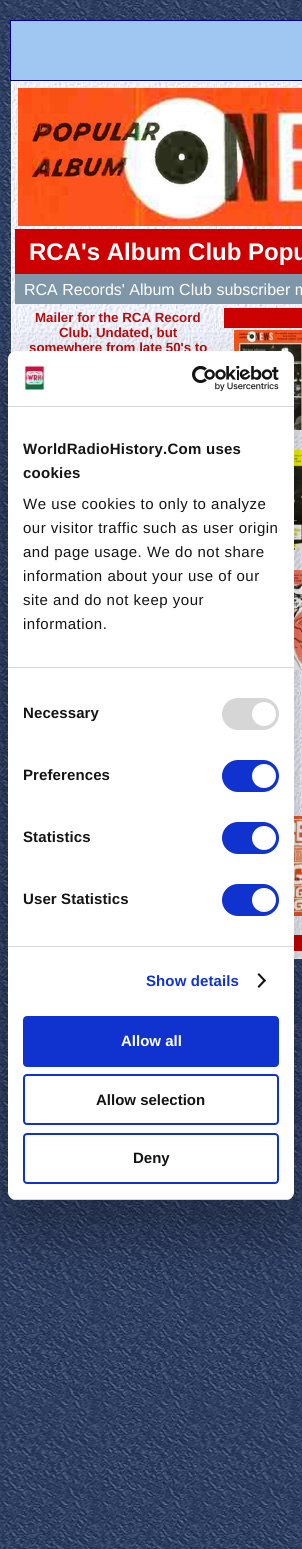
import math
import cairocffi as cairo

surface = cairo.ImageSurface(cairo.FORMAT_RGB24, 302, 1549)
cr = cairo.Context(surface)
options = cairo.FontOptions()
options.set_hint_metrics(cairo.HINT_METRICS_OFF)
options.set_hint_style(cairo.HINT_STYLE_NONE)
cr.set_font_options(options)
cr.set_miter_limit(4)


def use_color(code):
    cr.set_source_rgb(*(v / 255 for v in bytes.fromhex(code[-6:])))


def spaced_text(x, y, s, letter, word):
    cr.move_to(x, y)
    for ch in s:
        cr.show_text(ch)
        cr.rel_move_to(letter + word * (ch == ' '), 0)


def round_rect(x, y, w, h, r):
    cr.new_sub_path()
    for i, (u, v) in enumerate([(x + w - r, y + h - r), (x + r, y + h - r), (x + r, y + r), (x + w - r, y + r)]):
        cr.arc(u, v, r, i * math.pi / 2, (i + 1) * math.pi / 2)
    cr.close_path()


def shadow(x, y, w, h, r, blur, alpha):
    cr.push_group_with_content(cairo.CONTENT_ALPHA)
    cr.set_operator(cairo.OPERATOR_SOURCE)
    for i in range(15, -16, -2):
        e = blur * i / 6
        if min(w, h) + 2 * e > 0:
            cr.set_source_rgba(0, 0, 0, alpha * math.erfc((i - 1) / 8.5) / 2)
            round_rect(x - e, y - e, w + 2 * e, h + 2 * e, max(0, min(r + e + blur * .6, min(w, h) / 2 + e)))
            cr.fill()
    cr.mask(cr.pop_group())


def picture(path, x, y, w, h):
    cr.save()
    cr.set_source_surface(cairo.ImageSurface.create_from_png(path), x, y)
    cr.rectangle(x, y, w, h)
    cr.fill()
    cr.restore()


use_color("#ffffff")
cr.paint()
picture("img1.png", 0, 0, 302, 1549)
use_color("#a0c7f1")
cr.rectangle(10.5, 20.5, 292, 60)
cr.fill_preserve()
use_color("#000099")
cr.set_line_width(1)
cr.stroke()
picture("img2.png", 12, 82, 290, 876)
cr.rectangle(11.5, 81.5, 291, 877)
use_color("#ffffff")
cr.stroke()
picture("img3.png", 18, 88, 284, 138)
use_color("#cc0000")
cr.rectangle(15, 229, 287, 45)
cr.fill()
cr.select_font_face("Liberation Sans", cairo.FONT_SLANT_NORMAL, cairo.FONT_WEIGHT_BOLD)
cr.set_font_size(24)
use_color("#ffffff")
cr.move_to(29, 260)
cr.show_text("RCA's Album Club Popu")
use_color("#7e96a7")
cr.rectangle(15, 274, 287, 30)
cr.fill()
cr.select_font_face("Liberation Sans")
cr.set_font_size(16)
use_color("#ffffff")
cr.move_to(24, 295)
cr.show_text("RCA Records' Album Club subscriber m")
cr.select_font_face("Liberation Sans", cairo.FONT_SLANT_NORMAL, cairo.FONT_WEIGHT_BOLD)
cr.set_font_size(13.3)
use_color("#b90d0d")
cr.move_to(35, 322)
cr.show_text("Mailer for the RCA Record")
cr.move_to(59, 337)
cr.show_text("Club. Undated, but")
cr.move_to(29, 352)
cr.show_text("somewhere from late 50's to")
use_color("#cc0000")
cr.rectangle(224, 308, 78, 20)
cr.fill()
picture("img4.png", 234, 330, 68, 100)
picture("img5.png", 294, 450, 8, 100)
picture("img6.png", 294, 570, 8, 100)
picture("img7.png", 294, 816, 8, 100)
cr.rectangle(294, 935, 8, 16)
cr.fill()
use_color("#000000")
shadow(8, 383, 286, 849, 8, 34, 0.3)
use_color("#ffffff")
round_rect(8, 351, 286, 849, 8)
cr.fill()
use_color("#d6d6d6")
cr.rectangle(8, 406, 286, 1)
cr.fill()
picture("img8.png", 24, 366, 21, 24)
picture("img9.png", 192, 366, 87, 25)
cr.rectangle(8, 667, 286, 1)
cr.fill()
cr.set_font_size(15)
use_color("#141414")
spaced_text(23, 454, "WorldRadioHistory.Com uses", 0.25, 0)
spaced_text(23, 478, "cookies", 0.25, 0)
cr.select_font_face("Liberation Sans")
spaced_text(23, 509, "We use cookies to only to analyze", 0.5, 0)
spaced_text(23, 533, "our visitor traffic such as user origin", 0.5, 0)
spaced_text(23, 557, "and page usage. We do not share", 0.5, 0)
spaced_text(23, 581, "information about your use of our", 0.5, 0)
spaced_text(23, 605, "site and do not keep your", 0.5, 0)
spaced_text(23, 629, "information.", 0.5, 0)
use_color("#d6d6d6")
cr.rectangle(8, 946, 286, 1)
cr.fill()
cr.select_font_face("Liberation Sans", cairo.FONT_SLANT_NORMAL, cairo.FONT_WEIGHT_BOLD)
use_color("#141414")
spaced_text(23, 718, "Necessary", 0.1, 0)
use_color("#d6d6d6")
round_rect(222, 698, 57, 32, 16)
cr.fill()
use_color("#ffffff")
cr.arc(264, 714, 12, 0, 2 * math.pi)
cr.fill()
use_color("#141414")
spaced_text(23, 780, "Preferences", 0.1, 0)
use_color("#1032cf")
round_rect(222, 760, 57, 32, 16)
cr.fill()
use_color("#ffffff")
cr.arc(264, 776, 12, 0, 2 * math.pi)
cr.fill()
use_color("#141414")
spaced_text(23, 842, "Statistics", 0.1, 0)
use_color("#1032cf")
round_rect(222, 822, 57, 32, 16)
cr.fill()
use_color("#ffffff")
cr.arc(264, 838, 12, 0, 2 * math.pi)
cr.fill()
use_color("#141414")
spaced_text(23, 904, "User Statistics", 0.1, 0)
use_color("#1032cf")
round_rect(222, 884, 57, 32, 16)
cr.fill()
use_color("#ffffff")
cr.arc(264, 900, 12, 0, 2 * math.pi)
cr.fill()
use_color("#1032cf")
spaced_text(146, 986, "Show details", 0.1, 0)
use_color("#141414")
cr.new_path()
cr.move_to(259, 973)
cr.line_to(266, 980.5)
cr.line_to(264.5, 982)
cr.line_to(257.5, 974.5)
cr.close_path()
cr.fill()
cr.new_path()
cr.move_to(264.5, 979)
cr.line_to(266, 980.5)
cr.line_to(259, 988)
cr.line_to(257.5, 986.5)
cr.close_path()
cr.fill()
cr.save()
round_rect(8, 351, 286, 849, 8)
cr.clip()
use_color("#d6d6d6")
cr.rectangle(8, 1199, 286, 1)
cr.fill()
cr.restore()
use_color("#1032cf")
round_rect(24, 1017, 254, 49, 3)
cr.fill_preserve()
cr.set_line_width(2)
cr.stroke()
use_color("#ffffff")
cr.move_to(121, 1046)
cr.show_text("Allow all")
round_rect(24, 1075, 254, 49, 3)
use_color("#1032cf")
cr.stroke()
use_color("#141414")
cr.move_to(96, 1105)
cr.show_text("Allow selection")
round_rect(24, 1134, 254, 49, 3)
use_color("#1032cf")
cr.stroke()
use_color("#141414")
cr.move_to(133, 1163)
cr.show_text("Deny")
surface.write_to_png("result.png")
